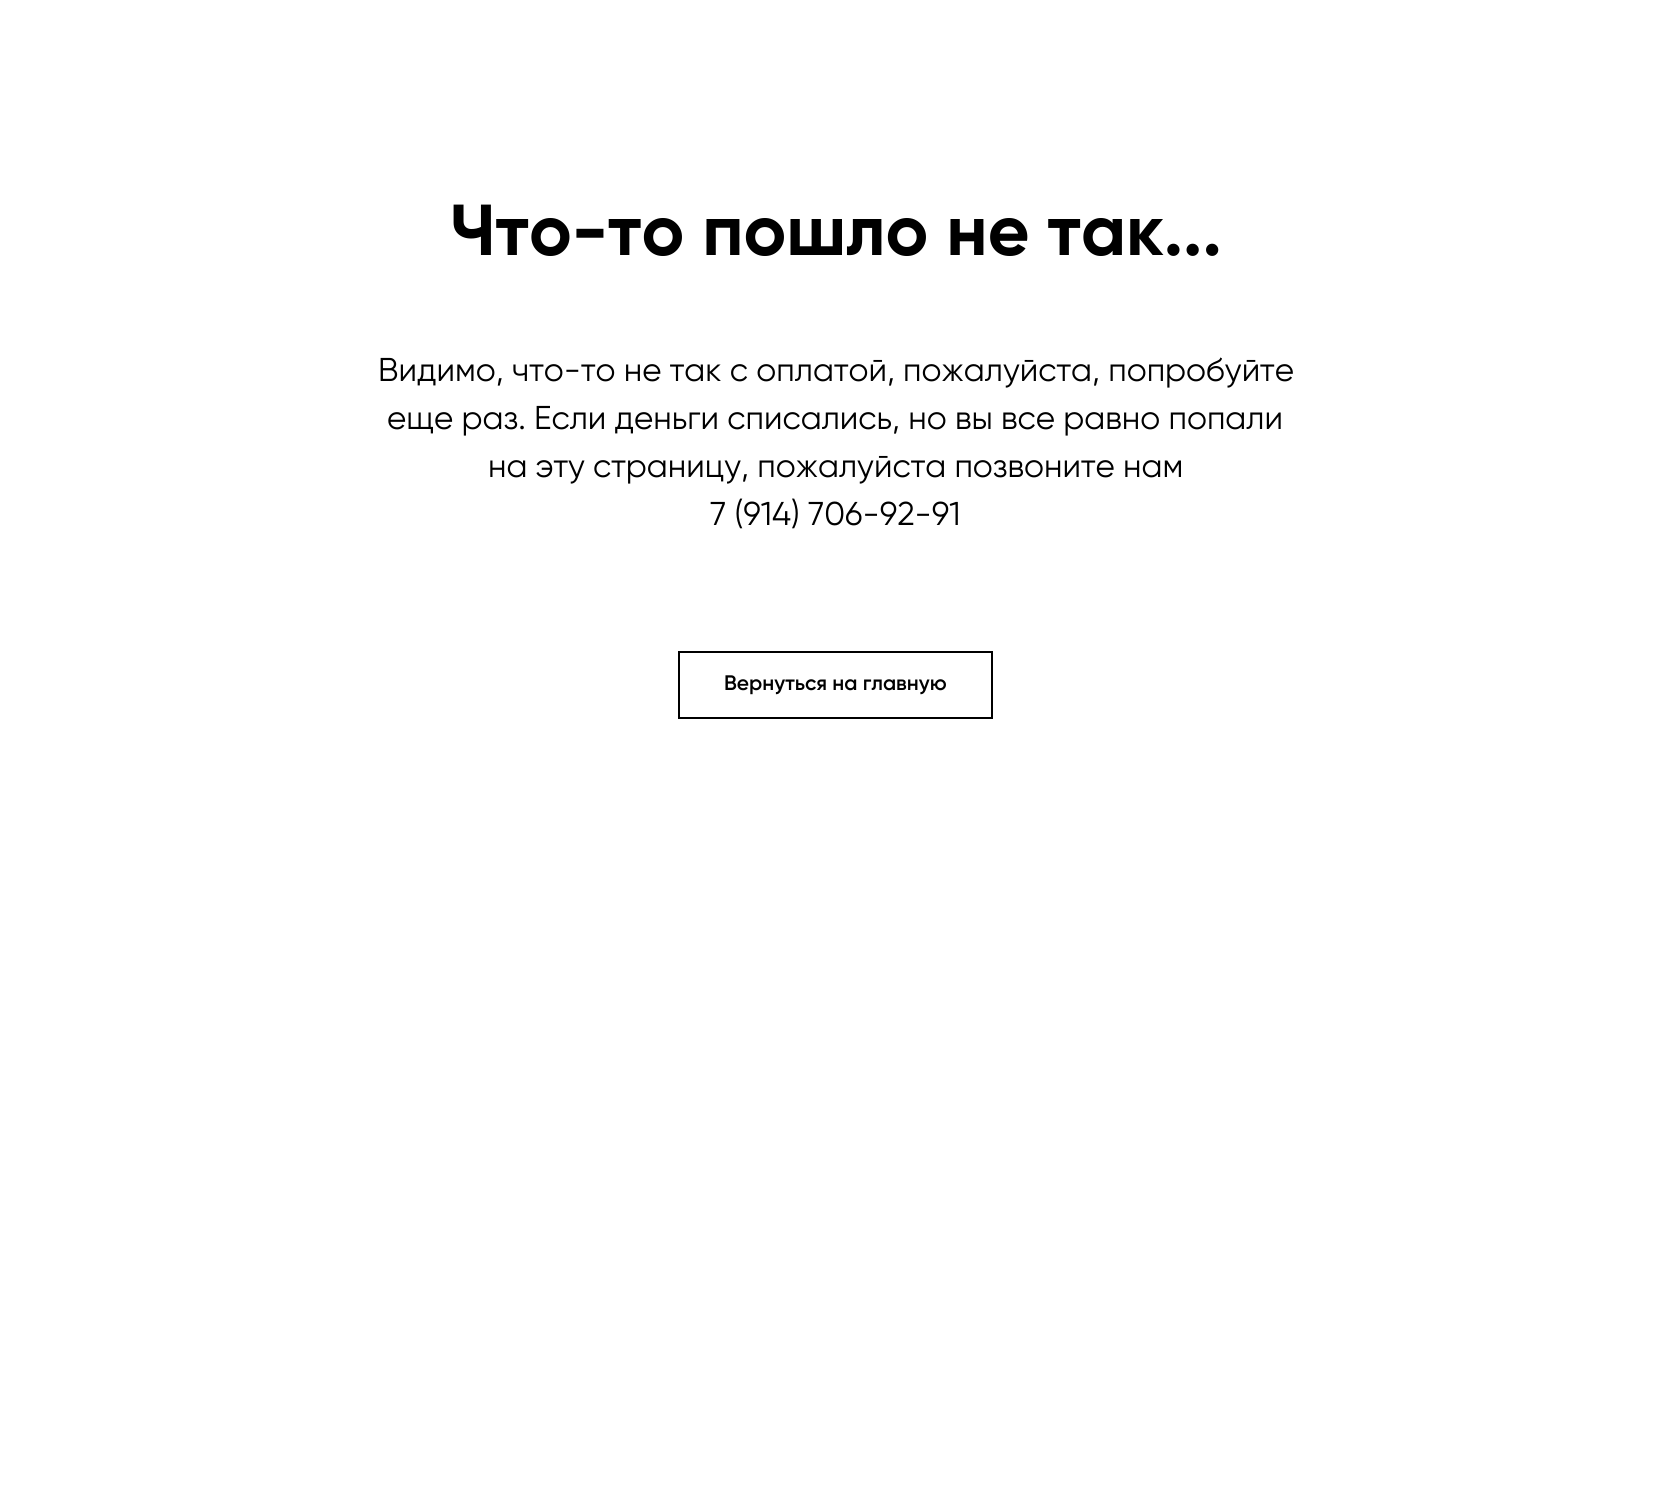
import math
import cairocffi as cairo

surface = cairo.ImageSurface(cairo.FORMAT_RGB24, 1671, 1510)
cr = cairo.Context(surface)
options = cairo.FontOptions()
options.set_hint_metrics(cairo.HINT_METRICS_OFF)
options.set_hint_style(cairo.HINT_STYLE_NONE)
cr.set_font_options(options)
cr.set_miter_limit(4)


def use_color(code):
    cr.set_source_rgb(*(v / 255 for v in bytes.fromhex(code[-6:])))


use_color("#ffffff")
cr.paint()
cr.select_font_face("Gilroy", cairo.FONT_SLANT_NORMAL, cairo.FONT_WEIGHT_BOLD)
cr.set_font_size(72)
use_color("#000000")
cr.move_to(450, 255)
cr.show_text("Что-то пошло не так...")
cr.select_font_face("Gilroy")
cr.set_font_size(33)
cr.move_to(378, 381)
cr.show_text("Видимо, что-то не так с оплатой, пожалуйста, попробуйте")
cr.move_to(387, 429)
cr.show_text("еще раз. Если деньги списались, но вы все равно попали")
cr.move_to(488, 477)
cr.show_text("на эту страницу, пожалуйста позвоните нам")
cr.move_to(710, 525)
cr.show_text("7 (914) 706-92-91")
cr.rectangle(679, 652, 313, 66)
cr.stroke()
cr.select_font_face("Gilroy SemiBold")
cr.set_font_size(21)
cr.move_to(724, 690)
cr.show_text("Вернуться на главную")
surface.write_to_png("result.png")
